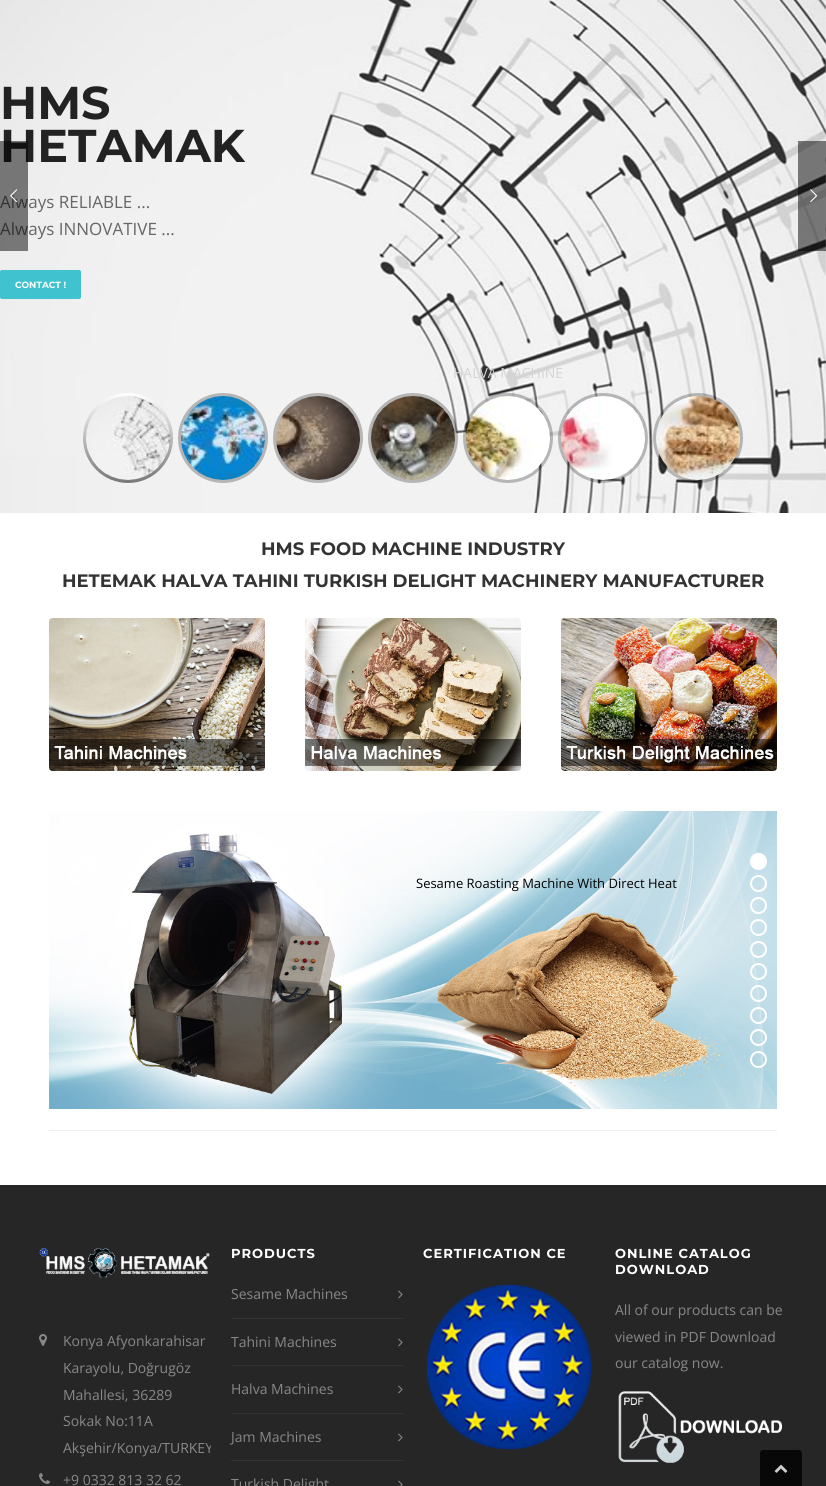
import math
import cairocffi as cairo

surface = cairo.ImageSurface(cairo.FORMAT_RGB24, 826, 1486)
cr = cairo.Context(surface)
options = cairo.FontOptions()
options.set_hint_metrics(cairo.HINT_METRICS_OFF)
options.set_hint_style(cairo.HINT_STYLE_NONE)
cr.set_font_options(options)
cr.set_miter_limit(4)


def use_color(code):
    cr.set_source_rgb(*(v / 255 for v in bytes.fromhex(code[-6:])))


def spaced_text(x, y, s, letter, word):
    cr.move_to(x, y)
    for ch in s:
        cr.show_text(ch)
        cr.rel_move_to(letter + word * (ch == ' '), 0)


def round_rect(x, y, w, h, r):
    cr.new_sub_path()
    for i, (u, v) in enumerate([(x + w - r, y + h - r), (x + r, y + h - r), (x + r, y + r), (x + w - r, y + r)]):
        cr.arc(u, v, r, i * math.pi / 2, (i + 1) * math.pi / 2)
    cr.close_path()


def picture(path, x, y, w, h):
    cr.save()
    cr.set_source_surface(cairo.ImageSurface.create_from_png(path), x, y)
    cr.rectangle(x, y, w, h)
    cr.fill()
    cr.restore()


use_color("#ffffff")
cr.paint()
picture("img1.png", 0, 0, 826, 513)
cr.select_font_face("Montserrat Thin")
cr.set_font_size(46)
use_color("#222222")
cr.move_to(0, 119)
cr.show_text("HMS")
cr.move_to(0, 162)
cr.show_text("HETAMAK")
cr.select_font_face("Open Sans")
cr.set_font_size(17)
use_color("#666666")
cr.move_to(0, 208)
cr.show_text("Always RELIABLE ...")
cr.move_to(0, 235)
cr.show_text("Always INNOVATIVE ...")
use_color("#41c3cf")
round_rect(0.5, 270.5, 80, 28, 1.5)
cr.fill_preserve()
cr.set_line_width(1)
cr.stroke()
cr.select_font_face("Montserrat Thin")
cr.set_font_size(9)
use_color("#ffffff")
cr.move_to(15, 288)
cr.show_text("CONTACT !")
cr.set_source_rgba(0, 0, 0, 0.5)
cr.rectangle(0, 141, 28, 110)
cr.fill()
picture("img2.png", 10, 189, 8, 14)
cr.rectangle(798, 141, 28, 110)
cr.fill()
picture("img3.png", 810, 189, 8, 14)
cr.set_source_rgba(0, 0, 0, 0.25)
cr.arc(508, 438, 45, 0, 2 * math.pi)
cr.fill()
cr.select_font_face("Open Sans")
cr.set_font_size(14)
use_color("#d4d4d4")
cr.move_to(453, 378)
cr.show_text("HALVA MACHINE")
picture("img4.png", 466, 396, 84, 84)
gradient = cairo.LinearGradient(128, 393, 128, 483)
gradient.add_color_stop_rgba(0, 1, 1, 1, 1)
gradient.add_color_stop_rgba(1, 0.467, 0.467, 0.467, 1)
cr.set_source(gradient)
cr.arc(128, 438, 45, 0, 2 * math.pi)
cr.fill()
picture("img5.png", 86, 396, 84, 84)
use_color("#b5b5b5")
cr.arc(223, 438, 45, 0, 2 * math.pi)
cr.fill()
picture("img6.png", 181, 396, 84, 84)
use_color("#b6b6b6")
cr.arc(318, 438, 45, 0, 2 * math.pi)
cr.fill()
picture("img7.png", 276, 396, 84, 84)
cr.set_source_rgba(0, 0, 0, 0.25)
cr.arc(413, 438, 45, 0, 2 * math.pi)
cr.fill()
picture("img8.png", 371, 396, 84, 84)
cr.arc(603, 438, 45, 0, 2 * math.pi)
cr.fill()
picture("img9.png", 561, 396, 84, 84)
cr.arc(698, 438, 45, 0, 2 * math.pi)
cr.fill()
picture("img10.png", 656, 396, 84, 84)
cr.select_font_face("Montserrat Thin")
cr.set_font_size(18)
use_color("#333333")
cr.move_to(261, 555)
cr.show_text("HMS FOOD MACHINE INDUSTRY")
cr.move_to(62, 587)
cr.show_text("HETEMAK HALVA TAHINI TURKISH DELIGHT MACHINERY MANUFACTURER")
picture("img11.png", 49, 618, 216, 153)
picture("img12.png", 305, 618, 216, 153)
picture("img13.png", 561, 618, 216, 153)
picture("img14.png", 49, 811, 728, 298)
cr.select_font_face("Open Sans")
cr.set_font_size(13)
use_color("#000000")
cr.move_to(416, 888)
cr.show_text("Sesame Roasting Machine With Direct Heat")
cr.new_path()
cr.arc(758.5, 861.5, 7.5, 0, 2 * math.pi)
use_color("#ffffff")
cr.set_line_width(2)
cr.stroke()
round_rect(751, 853, 15, 16, 7.5)
cr.fill()
cr.arc(758.5, 883.5, 7.5, 0, 2 * math.pi)
cr.stroke()
cr.arc(758.5, 905.5, 7.5, 0, 2 * math.pi)
cr.stroke()
cr.arc(758.5, 927.5, 7.5, 0, 2 * math.pi)
cr.stroke()
cr.arc(758.5, 949.5, 7.5, 0, 2 * math.pi)
cr.stroke()
cr.arc(758.5, 971.5, 7.5, 0, 2 * math.pi)
cr.stroke()
cr.arc(758.5, 993.5, 7.5, 0, 2 * math.pi)
cr.stroke()
cr.arc(758.5, 1015.5, 7.5, 0, 2 * math.pi)
cr.stroke()
cr.arc(758.5, 1037.5, 7.5, 0, 2 * math.pi)
cr.stroke()
cr.arc(758.5, 1059.5, 7.5, 0, 2 * math.pi)
cr.stroke()
use_color("#efefef")
cr.rectangle(49, 1130, 728, 1)
cr.fill()
use_color("#262626")
cr.rectangle(0, 1185, 826, 301)
cr.fill()
cr.select_font_face("Montserrat Thin")
use_color("#ffffff")
spaced_text(231, 1258, "PRODUCTS", 1, 0)
use_color("#333333")
cr.rectangle(231, 1318, 172, 1)
cr.fill()
cr.select_font_face("Open Sans")
cr.set_font_size(14)
use_color("#888888")
cr.move_to(231, 1299)
cr.show_text("Sesame Machines")
picture("img15.png", 398, 1290, 5, 9)
use_color("#333333")
cr.rectangle(231, 1365, 172, 1)
cr.fill()
use_color("#888888")
cr.move_to(231, 1347)
cr.show_text("Tahini Machines")
picture("img15.png", 398, 1338, 5, 9)
use_color("#333333")
cr.rectangle(231, 1413, 172, 1)
cr.fill()
use_color("#888888")
cr.move_to(231, 1394)
cr.show_text("Halva Machines")
picture("img15.png", 398, 1385, 5, 9)
use_color("#333333")
cr.rectangle(231, 1460, 172, 1)
cr.fill()
use_color("#888888")
cr.move_to(231, 1442)
cr.show_text("Jam Machines")
picture("img15.png", 398, 1433, 5, 9)
cr.move_to(231, 1489)
cr.show_text("Turkish Delight")
picture("img16.png", 398, 1480, 5, 6)
cr.select_font_face("Montserrat Thin")
cr.set_font_size(13)
use_color("#ffffff")
spaced_text(423, 1258, "CERTIFICATION CE", 1, 0)
picture("img17.png", 426, 1284, 166, 166)
spaced_text(615, 1258, "ONLINE CATALOG", 1, 0)
spaced_text(615, 1274, "DOWNLOAD", 1, 0)
cr.select_font_face("Open Sans")
cr.set_font_size(14)
use_color("#888888")
cr.move_to(615, 1315)
cr.show_text("All of our products can be")
cr.move_to(615, 1342)
cr.show_text("viewed in PDF Download")
cr.move_to(615, 1368)
cr.show_text("our catalog now.")
picture("img18.png", 618, 1391, 164, 72)
picture("img19.png", 39, 1248, 171, 30)
picture("img20.png", 39, 1334, 8, 12)
cr.move_to(63, 1346)
cr.show_text("Konya Afyonkarahisar")
cr.move_to(63, 1373)
cr.show_text("Karayolu, Doğrugöz")
cr.move_to(63, 1400)
cr.show_text("Mahallesi, 36289")
cr.move_to(63, 1426)
cr.show_text("Sokak No:11A")
cr.save()
cr.rectangle(63, 1328, 148, 133)
cr.clip()
cr.move_to(63, 1453)
cr.show_text("Akşehir/Konya/TURKEY")
cr.restore()
picture("img21.png", 39, 1473, 11, 11)
cr.move_to(63, 1485)
cr.show_text("+9 0332 813 32 62")
use_color("#080808")
cr.new_path()
cr.move_to(763, 1450)
cr.line_to(799, 1450)
cr.curve_to(800.5, 1450, 802, 1451.5, 802, 1453)
cr.line_to(802, 1486)
cr.line_to(760, 1486)
cr.line_to(760, 1453)
cr.curve_to(760, 1451.5, 761.5, 1450, 763, 1450)
cr.close_path()
cr.fill()
picture("img22.png", 774, 1464, 14, 9)
surface.write_to_png("result.png")
